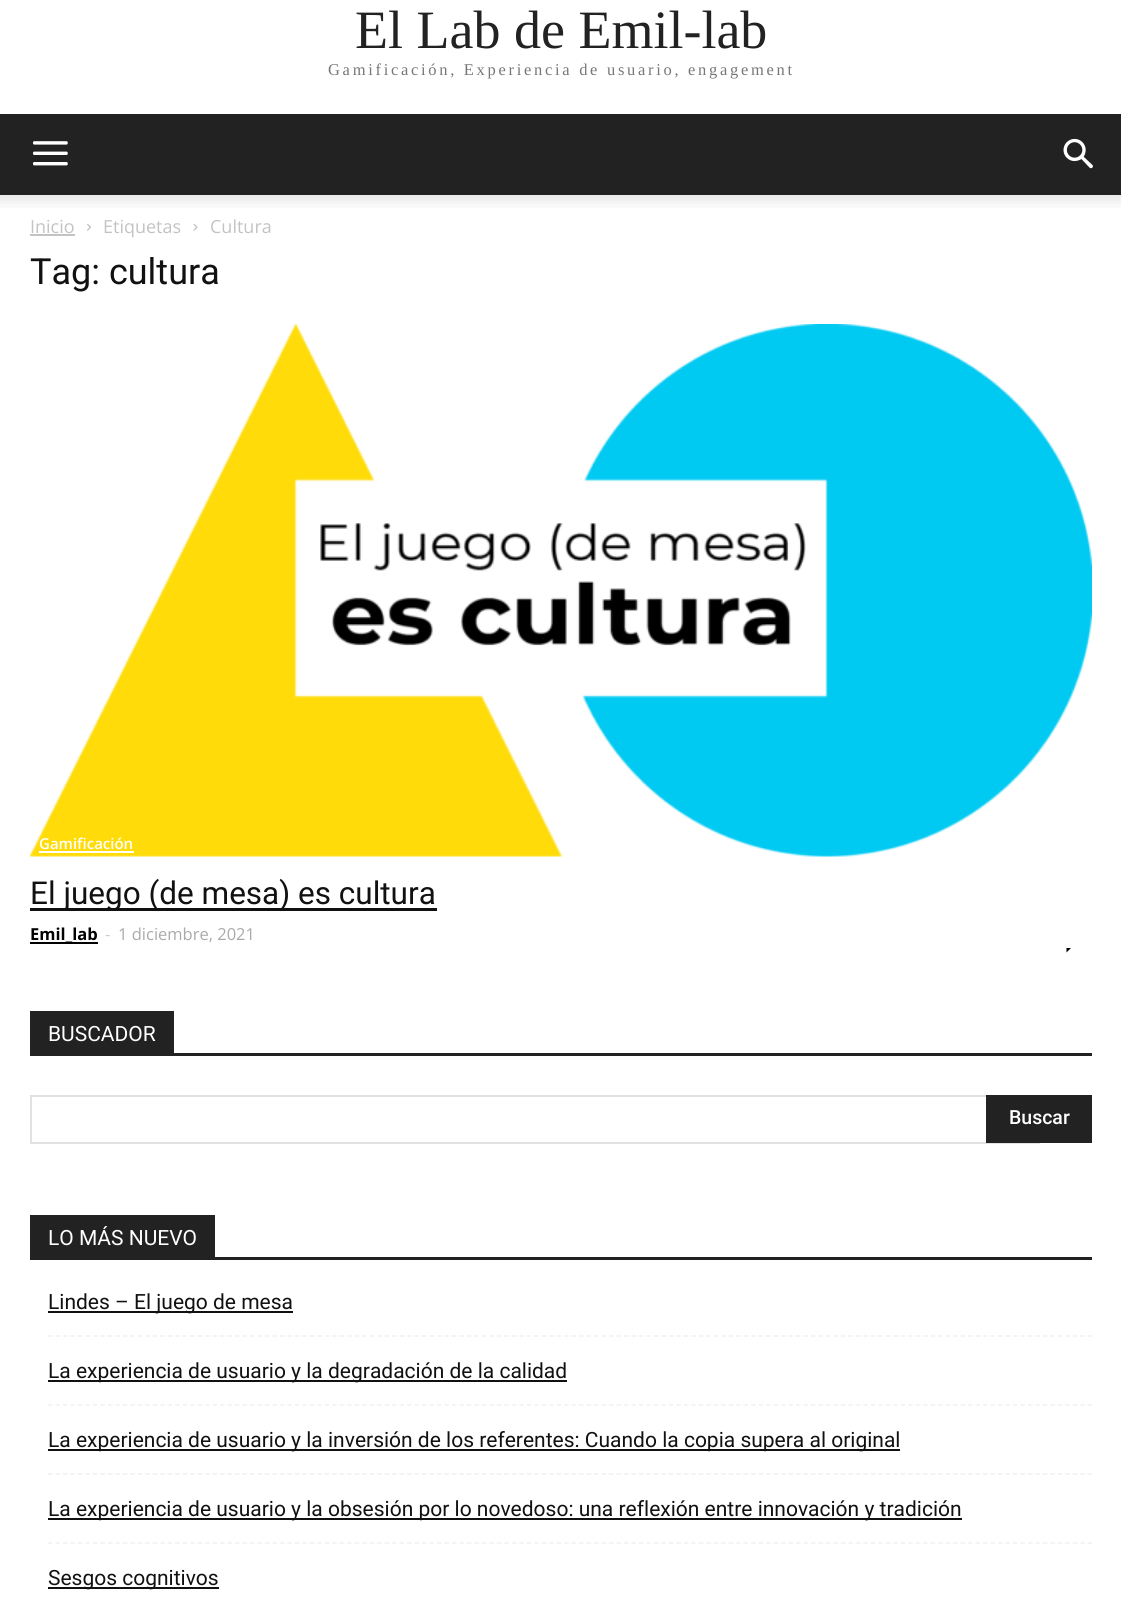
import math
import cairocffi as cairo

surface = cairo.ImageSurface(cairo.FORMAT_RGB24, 1121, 1602)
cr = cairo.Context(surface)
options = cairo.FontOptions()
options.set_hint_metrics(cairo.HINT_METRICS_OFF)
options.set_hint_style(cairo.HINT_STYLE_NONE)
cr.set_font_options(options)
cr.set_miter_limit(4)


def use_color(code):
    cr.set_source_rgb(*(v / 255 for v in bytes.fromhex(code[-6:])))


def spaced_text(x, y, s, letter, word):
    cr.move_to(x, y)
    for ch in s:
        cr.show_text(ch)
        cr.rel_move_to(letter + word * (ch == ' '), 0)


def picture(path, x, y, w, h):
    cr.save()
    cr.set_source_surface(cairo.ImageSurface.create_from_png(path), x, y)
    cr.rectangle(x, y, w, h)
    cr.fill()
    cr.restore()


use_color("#ffffff")
cr.paint()
cr.select_font_face("Liberation Serif")
cr.set_font_size(54)
use_color("#222222")
cr.move_to(355, 48)
cr.show_text("El Lab de Emil-lab")
cr.set_font_size(16.5)
use_color("#777777")
spaced_text(328, 75, "Gamificación, Experiencia de usuario, engagement", 2.7, 0)
use_color("#222222")
cr.rectangle(0, 114, 1121, 81)
cr.fill()
picture("img1.png", 33, 141, 35, 25)
picture("img2.png", 1063, 138, 30, 31)
picture("img3.png", 0, 195, 1121, 13)
cr.select_font_face("Open Sans")
cr.set_font_size(18)
use_color("#c3c3c3")
cr.move_to(30, 233)
cr.show_text("Inicio")
cr.rectangle(30, 234, 45, 2)
cr.fill()
picture("img4.png", 87, 223, 4, 8)
cr.move_to(103, 233)
cr.show_text("Etiquetas")
picture("img5.png", 193, 223, 5, 8)
cr.move_to(210, 233)
cr.show_text("Cultura")
cr.select_font_face("Roboto")
cr.set_font_size(36)
use_color("#111111")
cr.move_to(30, 284)
cr.show_text("Tag: cultura")
picture("img6.png", 30, 324, 1062, 533)
cr.select_font_face("Open Sans SemiBold")
cr.set_font_size(15)
use_color("#ffffff")
cr.move_to(39, 849)
cr.show_text("Gamificación")
cr.rectangle(39, 851, 95, 2)
cr.fill()
use_color("#111111")
cr.rectangle(30, 908, 407, 3)
cr.fill()
cr.select_font_face("Roboto")
cr.set_font_size(31.5)
cr.move_to(30, 904)
cr.show_text("El juego (de mesa) es cultura")
use_color("#000000")
cr.rectangle(30, 942, 68, 2)
cr.fill()
cr.select_font_face("Open Sans", cairo.FONT_SLANT_NORMAL, cairo.FONT_WEIGHT_BOLD)
cr.set_font_size(16.5)
cr.move_to(30, 940)
cr.show_text("Emil_lab")
cr.select_font_face("Open Sans")
use_color("#cccccc")
cr.move_to(105, 940)
cr.show_text("-")
use_color("#aaaaaa")
cr.move_to(118, 940)
cr.show_text("1 diciembre, 2021")
use_color("#000000")
cr.new_path()
cr.move_to(1066.5, 948)
cr.line_to(1071, 948)
cr.line_to(1066.5, 952.5)
cr.close_path()
cr.fill()
use_color("#222222")
cr.rectangle(30, 1053, 1062, 3)
cr.fill()
cr.rectangle(30, 1011, 144, 42)
cr.fill()
cr.select_font_face("Roboto")
cr.set_font_size(21)
use_color("#ffffff")
cr.move_to(48, 1041)
cr.show_text("BUSCADOR")
use_color("#e1e1e1")
cr.rectangle(30, 1095, 956, 2)
cr.fill()
cr.rectangle(30, 1142, 1010, 2)
cr.fill()
cr.rectangle(30, 1095, 2, 48)
cr.fill()
use_color("#222222")
cr.rectangle(986, 1095, 106, 48)
cr.fill()
cr.select_font_face("Roboto Medium")
cr.set_font_size(19.5)
use_color("#ffffff")
cr.move_to(1009, 1124)
cr.show_text("Buscar")
use_color("#222222")
cr.rectangle(30, 1257, 1062, 3)
cr.fill()
cr.rectangle(30, 1215, 185, 42)
cr.fill()
cr.select_font_face("Roboto")
cr.set_font_size(21)
use_color("#ffffff")
cr.move_to(48, 1245)
cr.show_text("LO MÁS NUEVO")
cr.new_path()
cr.move_to(48, 1336)
cr.line_to(1092, 1336)
use_color("#f1f1f1")
cr.set_line_width(1.5)
cr.set_dash([4.5, 2.98])
cr.stroke()
use_color("#111111")
cr.rectangle(48, 1311, 245, 2)
cr.fill()
cr.move_to(48, 1309)
cr.show_text("Lindes – El juego de mesa")
cr.new_path()
cr.move_to(48, 1405)
cr.line_to(1092, 1405)
use_color("#f1f1f1")
cr.stroke()
use_color("#111111")
cr.rectangle(48, 1380, 519, 2)
cr.fill()
cr.move_to(48, 1378)
cr.show_text("La experiencia de usuario y la degradación de la calidad")
cr.new_path()
cr.move_to(48, 1474)
cr.line_to(1092, 1474)
use_color("#f1f1f1")
cr.stroke()
use_color("#111111")
cr.rectangle(48, 1449, 852, 2)
cr.fill()
cr.move_to(48, 1447)
cr.show_text("La experiencia de usuario y la inversión de los referentes: Cuando la copia supera al original")
cr.new_path()
cr.move_to(48, 1543)
cr.line_to(1092, 1543)
use_color("#f1f1f1")
cr.stroke()
use_color("#111111")
cr.rectangle(48, 1518, 914, 2)
cr.fill()
cr.move_to(48, 1516)
cr.show_text("La experiencia de usuario y la obsesión por lo novedoso: una reflexión entre innovación y tradición")
cr.rectangle(48, 1587, 171, 2)
cr.fill()
cr.move_to(48, 1585)
cr.show_text("Sesgos cognitivos")
surface.write_to_png("result.png")
